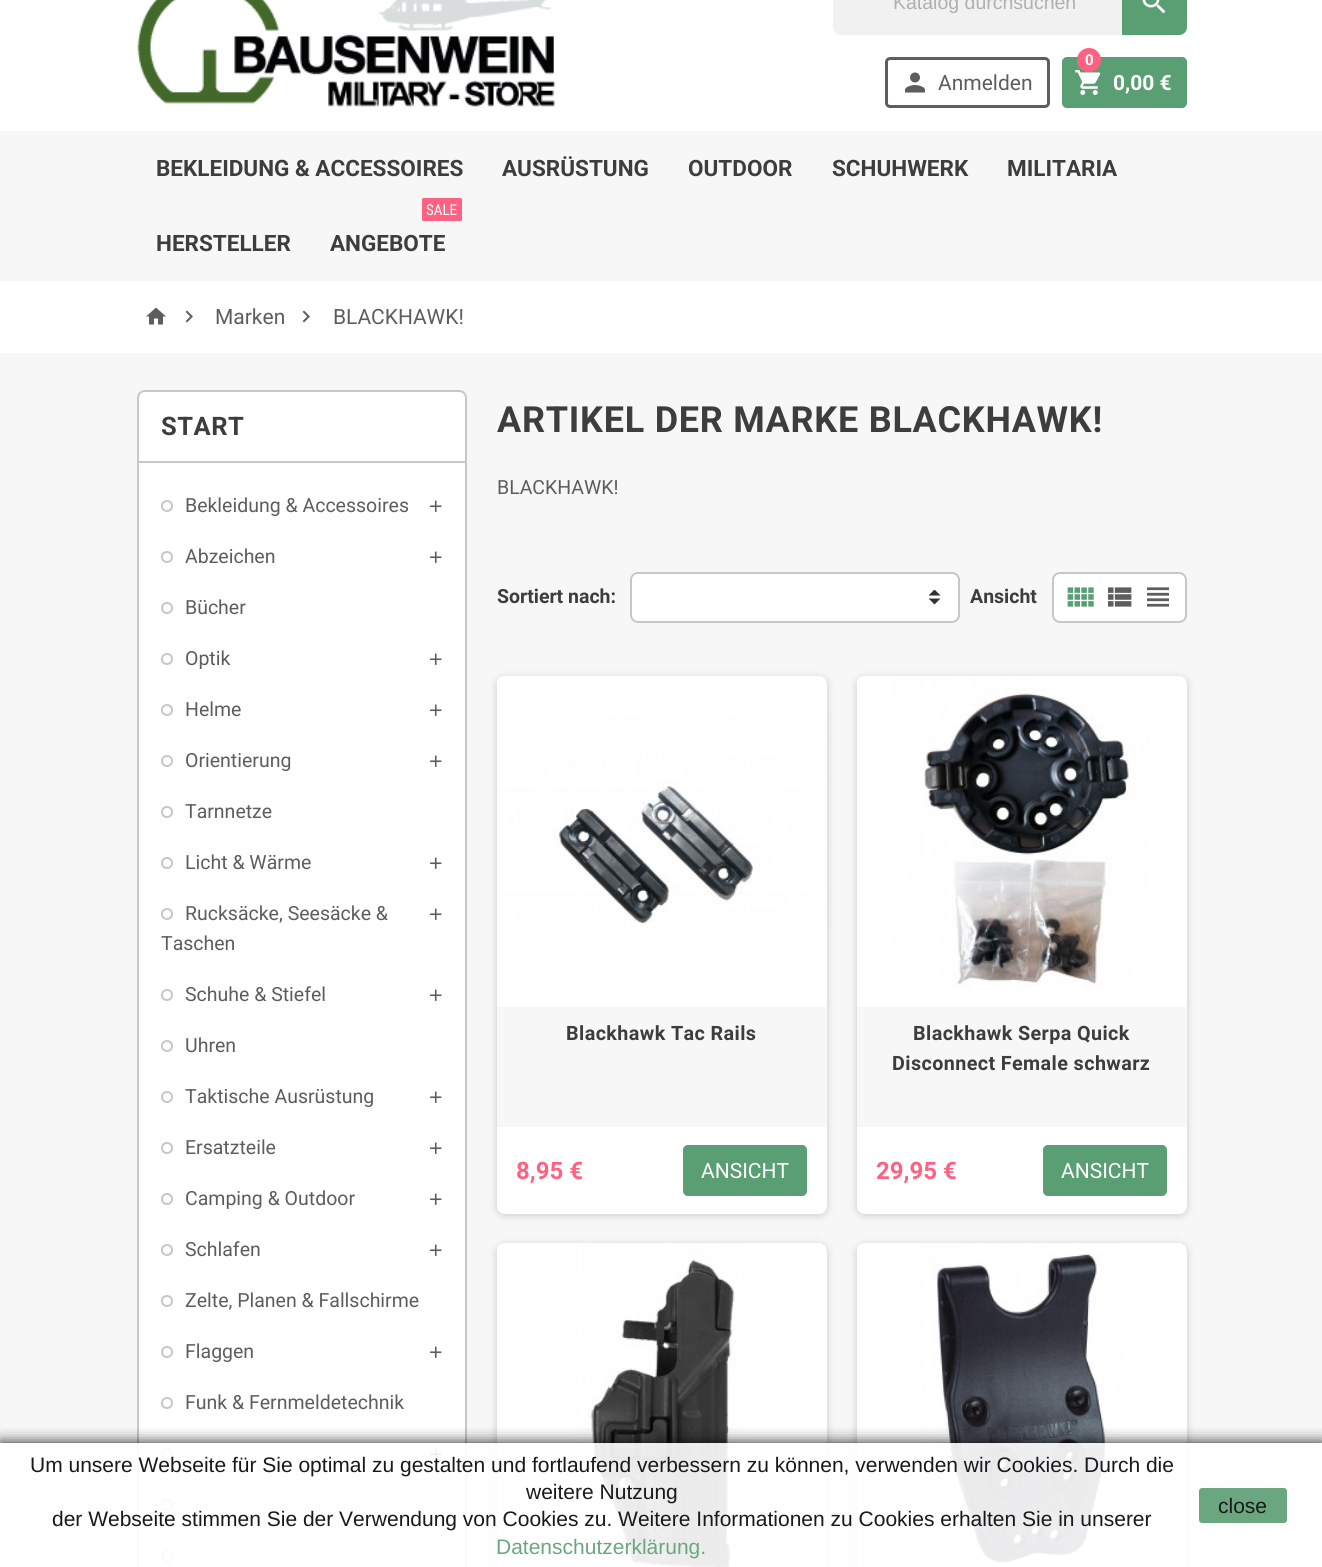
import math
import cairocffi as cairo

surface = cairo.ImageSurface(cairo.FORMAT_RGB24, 1322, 1567)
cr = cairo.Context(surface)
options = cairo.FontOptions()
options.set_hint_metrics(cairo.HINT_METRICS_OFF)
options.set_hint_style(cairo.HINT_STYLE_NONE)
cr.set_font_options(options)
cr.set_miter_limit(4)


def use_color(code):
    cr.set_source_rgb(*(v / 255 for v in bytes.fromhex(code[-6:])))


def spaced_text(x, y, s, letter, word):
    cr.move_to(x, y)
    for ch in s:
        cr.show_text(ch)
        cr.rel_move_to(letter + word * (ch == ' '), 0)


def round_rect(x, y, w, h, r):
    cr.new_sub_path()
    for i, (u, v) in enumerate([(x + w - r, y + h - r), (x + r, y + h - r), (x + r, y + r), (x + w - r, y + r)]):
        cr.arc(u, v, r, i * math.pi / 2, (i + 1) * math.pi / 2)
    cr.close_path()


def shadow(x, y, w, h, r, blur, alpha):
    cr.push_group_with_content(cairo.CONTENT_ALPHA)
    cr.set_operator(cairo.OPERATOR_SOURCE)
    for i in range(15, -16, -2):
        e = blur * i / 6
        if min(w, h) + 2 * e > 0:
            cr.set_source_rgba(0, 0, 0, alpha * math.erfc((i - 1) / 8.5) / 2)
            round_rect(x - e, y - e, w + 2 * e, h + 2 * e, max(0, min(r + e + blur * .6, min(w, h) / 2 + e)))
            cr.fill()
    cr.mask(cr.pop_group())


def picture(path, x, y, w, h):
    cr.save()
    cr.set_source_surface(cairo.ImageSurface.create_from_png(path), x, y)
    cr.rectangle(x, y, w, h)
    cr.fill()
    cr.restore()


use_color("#ffffff")
cr.paint()
picture("img1.png", 137, 0, 419, 107)
use_color("#f1f1f1")
round_rect(833, -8, 354, 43, 8)
cr.fill()
cr.select_font_face("Liberation Sans")
cr.set_font_size(19.5)
use_color("#b0b0b0")
cr.move_to(893, 9)
cr.show_text("Katalog durchsuchen")
use_color("#5a9e74")
cr.new_path()
cr.move_to(1122, -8)
cr.line_to(1179, -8)
cr.curve_to(1183.5, -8, 1187, -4.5, 1187, 0)
cr.line_to(1187, 27)
cr.curve_to(1187, 31.5, 1183.5, 35, 1179, 35)
cr.line_to(1122, 35)
cr.close_path()
cr.fill()
picture("img2.png", 1142, 0, 24, 14)
round_rect(886.5, 58.5, 162, 48, 3.5)
use_color("#5d5d5d")
cr.set_line_width(3)
cr.stroke()
picture("img3.png", 905, 72, 20, 21)
cr.select_font_face("Roboto")
cr.set_font_size(21)
cr.move_to(938, 90)
cr.show_text("Anmelden")
use_color("#5a9e74")
round_rect(1062, 57, 125, 51, 5)
cr.fill()
picture("img4.png", 1075, 70, 26, 25)
use_color("#fd6282")
cr.arc(1089, 60, 12, 0, 2 * math.pi)
cr.fill()
cr.select_font_face("Roboto", cairo.FONT_SLANT_NORMAL, cairo.FONT_WEIGHT_BOLD)
cr.set_font_size(15)
use_color("#ffffff")
cr.move_to(1085, 65)
cr.show_text("0")
cr.set_font_size(21)
cr.move_to(1113, 90)
cr.show_text("0,00 €")
use_color("#f7f7f7")
cr.rectangle(0, 131, 1322, 150)
cr.fill()
cr.select_font_face("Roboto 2", cairo.FONT_SLANT_NORMAL, cairo.FONT_WEIGHT_BOLD)
cr.set_font_size(22.5)
use_color("#3d3d3d")
cr.move_to(156, 176)
cr.show_text("BEKLEIDUNG & ACCESSOIRES")
cr.move_to(502, 176)
cr.show_text("AUSRÜSTUNG")
cr.move_to(688, 176)
cr.show_text("OUTDOOR")
cr.move_to(832, 176)
cr.show_text("SCHUHWERK")
cr.move_to(1007, 176)
cr.show_text("MILITARIA")
cr.move_to(156, 251)
cr.show_text("HERSTELLER")
use_color("#fd6282")
round_rect(422, 198, 40, 23, 1.5)
cr.fill()
cr.select_font_face("Roboto Condensed")
cr.set_font_size(15)
use_color("#ffffff")
cr.move_to(426, 215)
cr.show_text("SALE")
cr.select_font_face("Roboto 2", cairo.FONT_SLANT_NORMAL, cairo.FONT_WEIGHT_BOLD)
cr.set_font_size(22.5)
use_color("#3d3d3d")
cr.move_to(330, 251)
cr.show_text("ANGEBOTE")
picture("img5.png", 146, 307, 20, 18)
picture("img6.png", 185, 310, 8, 13)
cr.select_font_face("Roboto")
cr.set_font_size(21)
use_color("#5d5d5d")
cr.move_to(215, 324)
cr.show_text("Marken")
picture("img6.png", 302, 310, 8, 13)
cr.move_to(333, 324)
cr.show_text("BLACKHAWK!")
use_color("#f7f7f7")
cr.rectangle(0, 353, 1322, 1214)
cr.fill()
use_color("#ffffff")
round_rect(138, 391, 328, 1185, 7)
cr.fill_preserve()
use_color("#c7c7c7")
cr.set_line_width(2)
cr.stroke()
cr.rectangle(138, 461, 327, 2)
cr.fill()
cr.select_font_face("Roboto 2", cairo.FONT_SLANT_NORMAL, cairo.FONT_WEIGHT_BOLD)
cr.set_font_size(25.5)
use_color("#3d3d3d")
spaced_text(161, 435, "START", 0.5, 0)
cr.new_path()
cr.arc(167, 506, 5, 0, 2 * math.pi)
use_color("#c7c7c7")
cr.stroke()
cr.select_font_face("Roboto")
cr.set_font_size(19.5)
use_color("#5d5d5d")
cr.move_to(185, 512)
cr.show_text("Bekleidung & Accessoires")
picture("img7.png", 430, 500, 12, 12)
cr.arc(167, 557, 5, 0, 2 * math.pi)
use_color("#c7c7c7")
cr.stroke()
use_color("#5d5d5d")
cr.move_to(185, 563)
cr.show_text("Abzeichen")
picture("img7.png", 430, 551, 12, 12)
cr.arc(167, 608, 5, 0, 2 * math.pi)
use_color("#c7c7c7")
cr.stroke()
use_color("#5d5d5d")
cr.move_to(185, 614)
cr.show_text("Bücher")
cr.new_path()
cr.arc(167, 659, 5, 0, 2 * math.pi)
use_color("#c7c7c7")
cr.stroke()
use_color("#5d5d5d")
cr.move_to(185, 665)
cr.show_text("Optik")
picture("img7.png", 430, 653, 12, 12)
cr.arc(167, 710, 5, 0, 2 * math.pi)
use_color("#c7c7c7")
cr.stroke()
use_color("#5d5d5d")
cr.move_to(185, 716)
cr.show_text("Helme")
picture("img7.png", 430, 704, 12, 12)
cr.arc(167, 761, 5, 0, 2 * math.pi)
use_color("#c7c7c7")
cr.stroke()
use_color("#5d5d5d")
cr.move_to(185, 767)
cr.show_text("Orientierung")
picture("img7.png", 430, 755, 12, 12)
cr.arc(167, 812, 5, 0, 2 * math.pi)
use_color("#c7c7c7")
cr.stroke()
use_color("#5d5d5d")
cr.move_to(185, 818)
cr.show_text("Tarnnetze")
cr.new_path()
cr.arc(167, 863, 5, 0, 2 * math.pi)
use_color("#c7c7c7")
cr.stroke()
use_color("#5d5d5d")
cr.move_to(185, 869)
cr.show_text("Licht & Wärme")
picture("img7.png", 430, 857, 12, 12)
cr.arc(167, 914, 5, 0, 2 * math.pi)
use_color("#c7c7c7")
cr.stroke()
use_color("#5d5d5d")
cr.move_to(185, 920)
cr.show_text("Rucksäcke, Seesäcke &")
cr.move_to(161, 950)
cr.show_text("Taschen")
picture("img7.png", 430, 908, 12, 12)
cr.arc(167, 995, 5, 0, 2 * math.pi)
use_color("#c7c7c7")
cr.stroke()
use_color("#5d5d5d")
cr.move_to(185, 1001)
cr.show_text("Schuhe & Stiefel")
picture("img7.png", 430, 989, 12, 12)
cr.arc(167, 1046, 5, 0, 2 * math.pi)
use_color("#c7c7c7")
cr.stroke()
use_color("#5d5d5d")
cr.move_to(185, 1052)
cr.show_text("Uhren")
cr.new_path()
cr.arc(167, 1097, 5, 0, 2 * math.pi)
use_color("#c7c7c7")
cr.stroke()
use_color("#5d5d5d")
cr.move_to(185, 1103)
cr.show_text("Taktische Ausrüstung")
picture("img7.png", 430, 1091, 12, 12)
cr.arc(167, 1148, 5, 0, 2 * math.pi)
use_color("#c7c7c7")
cr.stroke()
use_color("#5d5d5d")
cr.move_to(185, 1154)
cr.show_text("Ersatzteile")
picture("img7.png", 430, 1142, 12, 12)
cr.arc(167, 1199, 5, 0, 2 * math.pi)
use_color("#c7c7c7")
cr.stroke()
use_color("#5d5d5d")
cr.move_to(185, 1205)
cr.show_text("Camping & Outdoor")
picture("img7.png", 430, 1193, 12, 12)
cr.arc(167, 1250, 5, 0, 2 * math.pi)
use_color("#c7c7c7")
cr.stroke()
use_color("#5d5d5d")
cr.move_to(185, 1256)
cr.show_text("Schlafen")
picture("img7.png", 430, 1244, 12, 12)
cr.arc(167, 1301, 5, 0, 2 * math.pi)
use_color("#c7c7c7")
cr.stroke()
use_color("#5d5d5d")
cr.move_to(185, 1307)
cr.show_text("Zelte, Planen & Fallschirme")
cr.new_path()
cr.arc(167, 1352, 5, 0, 2 * math.pi)
use_color("#c7c7c7")
cr.stroke()
use_color("#5d5d5d")
cr.move_to(185, 1358)
cr.show_text("Flaggen")
picture("img7.png", 430, 1346, 12, 12)
cr.arc(167, 1403, 5, 0, 2 * math.pi)
use_color("#c7c7c7")
cr.stroke()
use_color("#5d5d5d")
cr.move_to(185, 1409)
cr.show_text("Funk & Fernmeldetechnik")
cr.new_path()
cr.arc(167, 1454, 5, 0, 2 * math.pi)
use_color("#c7c7c7")
cr.stroke()
picture("img7.png", 430, 1448, 12, 12)
cr.arc(167, 1505, 5, 0, 2 * math.pi)
cr.stroke()
cr.arc(167, 1556, 5, 0, 2 * math.pi)
cr.stroke()
cr.select_font_face("Roboto 2", cairo.FONT_SLANT_NORMAL, cairo.FONT_WEIGHT_BOLD)
cr.set_font_size(36)
use_color("#3d3d3d")
spaced_text(497, 432, "ARTIKEL DER MARKE BLACKHAWK!", 0.75, 0)
cr.select_font_face("Roboto")
cr.set_font_size(19.5)
use_color("#5d5d5d")
cr.move_to(497, 494)
cr.show_text("BLACKHAWK!")
cr.select_font_face("Roboto", cairo.FONT_SLANT_NORMAL, cairo.FONT_WEIGHT_BOLD)
use_color("#3d3d3d")
cr.move_to(497, 603)
cr.show_text("Sortiert nach:")
use_color("#ffffff")
round_rect(630, 572, 330, 51, 8)
cr.fill()
picture("img8.png", 929, 590, 12, 15)
round_rect(631, 573, 328, 49, 7)
use_color("#c7c7c7")
cr.stroke()
use_color("#3d3d3d")
cr.move_to(970, 603)
cr.show_text("Ansicht")
use_color("#ffffff")
round_rect(1053, 573, 133, 49, 7)
cr.fill_preserve()
use_color("#c7c7c7")
cr.stroke()
picture("img9.png", 1067, 587, 27, 20)
picture("img10.png", 1108, 587, 24, 20)
picture("img11.png", 1147, 587, 22, 20)
use_color("#000000")
shadow(497, 678, 330, 537, 8, 4, 0.2)
use_color("#ffffff")
round_rect(497, 677, 330, 537, 8)
cr.fill()
picture("img12.png", 497, 676, 329, 247)
use_color("#f7f7f7")
cr.rectangle(497, 1007, 330, 120)
cr.fill()
cr.set_font_size(19.75)
use_color("#3d3d3d")
spaced_text(566, 1040, "Blackhawk Tac Rails", 0.4, 0)
cr.set_font_size(24)
use_color("#fd6282")
cr.move_to(516, 1179)
cr.show_text("8,95 €")
use_color("#5a9e74")
round_rect(683, 1145, 124, 51, 5)
cr.fill()
cr.select_font_face("Roboto")
cr.set_font_size(21)
use_color("#ffffff")
cr.move_to(701, 1178)
cr.show_text("ANSICHT")
use_color("#000000")
shadow(857, 678, 330, 537, 8, 4, 0.2)
use_color("#ffffff")
round_rect(857, 677, 330, 537, 8)
cr.fill()
picture("img13.png", 857, 676, 329, 313)
use_color("#f7f7f7")
cr.rectangle(857, 1007, 330, 120)
cr.fill()
cr.select_font_face("Roboto", cairo.FONT_SLANT_NORMAL, cairo.FONT_WEIGHT_BOLD)
cr.set_font_size(19.75)
use_color("#3d3d3d")
spaced_text(913, 1040, "Blackhawk Serpa Quick", 0.4, 0)
spaced_text(892, 1070, "Disconnect Female schwarz", 0.4, 0)
cr.set_font_size(24)
use_color("#fd6282")
cr.move_to(876, 1179)
cr.show_text("29,95 €")
use_color("#5a9e74")
round_rect(1043, 1145, 124, 51, 5)
cr.fill()
cr.select_font_face("Roboto")
cr.set_font_size(21)
use_color("#ffffff")
cr.move_to(1061, 1178)
cr.show_text("ANSICHT")
use_color("#000000")
shadow(497, 1245, 330, 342, 8, 4, 0.2)
use_color("#ffffff")
round_rect(497, 1244, 330, 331, 8)
cr.fill()
picture("img14.png", 497, 1243, 329, 324)
use_color("#000000")
shadow(857, 1245, 330, 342, 8, 4, 0.2)
use_color("#ffffff")
round_rect(857, 1244, 330, 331, 8)
cr.fill()
picture("img15.png", 857, 1243, 329, 322)
cr.save()
cr.rectangle(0, 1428, 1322, 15)
cr.clip()
use_color("#000000")
shadow(0, 1443, 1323, 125, 0, 7.5, 0.9)
cr.restore()
cr.set_source_rgba(1, 1, 1, 0.9)
cr.rectangle(0, 1443, 1322, 124)
cr.fill()
cr.select_font_face("Liberation Sans")
use_color("#191919")
cr.move_to(30, 1472)
cr.show_text("Um unsere Webseite für Sie optimal zu gestalten und fortlaufend verbessern zu können, verwenden wir Cookies. Durch die")
cr.move_to(526, 1499)
cr.show_text("weitere Nutzung")
cr.move_to(52, 1526)
cr.show_text("der Webseite stimmen Sie der Verwendung von Cookies zu. Weitere Informationen zu Cookies erhalten Sie in unserer")
use_color("#6aa781")
cr.move_to(496, 1554)
cr.show_text("Datenschutzerklärung.")
round_rect(1199, 1488, 88, 35, 3)
cr.fill()
use_color("#191919")
cr.move_to(1218, 1513)
cr.show_text("close")
surface.write_to_png("result.png")
